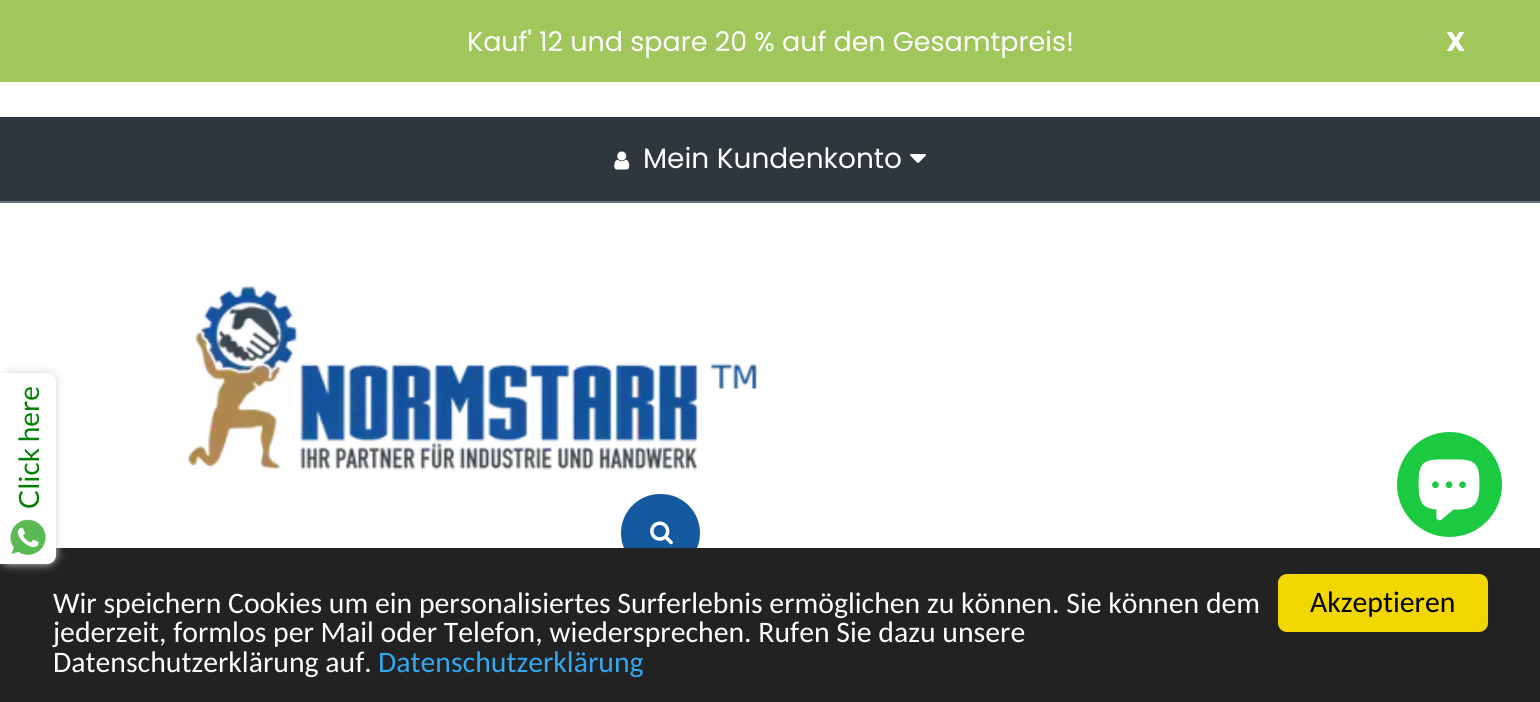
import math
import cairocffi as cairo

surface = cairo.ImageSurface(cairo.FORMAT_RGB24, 1540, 702)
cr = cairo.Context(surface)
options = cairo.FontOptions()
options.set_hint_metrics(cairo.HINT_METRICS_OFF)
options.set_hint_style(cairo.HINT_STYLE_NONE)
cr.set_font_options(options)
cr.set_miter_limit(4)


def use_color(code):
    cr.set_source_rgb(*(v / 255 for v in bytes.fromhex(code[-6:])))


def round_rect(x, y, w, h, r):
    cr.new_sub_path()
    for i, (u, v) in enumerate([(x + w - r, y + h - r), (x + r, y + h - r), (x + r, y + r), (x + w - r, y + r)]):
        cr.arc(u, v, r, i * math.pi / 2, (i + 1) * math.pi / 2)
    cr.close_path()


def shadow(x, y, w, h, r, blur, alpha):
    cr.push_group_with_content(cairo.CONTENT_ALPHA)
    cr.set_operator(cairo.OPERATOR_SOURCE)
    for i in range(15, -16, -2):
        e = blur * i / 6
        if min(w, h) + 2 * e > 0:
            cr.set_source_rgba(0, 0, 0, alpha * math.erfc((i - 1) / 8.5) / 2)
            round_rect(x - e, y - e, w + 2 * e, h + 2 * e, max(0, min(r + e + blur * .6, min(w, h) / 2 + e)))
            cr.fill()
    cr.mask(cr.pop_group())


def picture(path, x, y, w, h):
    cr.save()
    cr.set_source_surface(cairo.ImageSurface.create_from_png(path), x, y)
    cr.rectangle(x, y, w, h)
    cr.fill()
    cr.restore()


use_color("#ffffff")
cr.paint()
use_color("#a1c65b")
cr.rectangle(0, 0, 1540, 82)
cr.fill()
cr.select_font_face("Poppins")
cr.set_font_size(26.95)
use_color("#ffffff")
cr.move_to(467, 51)
cr.show_text("Kauf' 12 und spare 20 % auf den Gesamtpreis!")
cr.select_font_face("Poppins", cairo.FONT_SLANT_NORMAL, cairo.FONT_WEIGHT_BOLD)
cr.move_to(1446, 51)
cr.show_text("X")
use_color("#2e373c")
cr.rectangle(0, 117, 1540, 84)
cr.fill()
use_color("#6d767b")
cr.rectangle(0, 201, 1540, 2)
cr.fill()
picture("img1.png", 614, 151, 16, 19)
cr.select_font_face("Poppins")
cr.set_font_size(28)
use_color("#ffffff")
cr.move_to(643, 168)
cr.show_text("Mein Kundenkonto")
picture("img2.png", 910, 154, 16, 9)
picture("img3.png", 187, 286, 570, 184)
use_color("#155aa1")
round_rect(621, 494, 79, 78, 39)
cr.fill()
picture("img4.png", 650, 521, 23, 24)
use_color("#222222")
cr.rectangle(0, 548, 1540, 154)
cr.fill()
use_color("#d3d3d3")
shadow(0, 373, 56, 191, 9, 4.5, 1)
use_color("#ffffff")
cr.new_path()
cr.move_to(0, 373)
cr.line_to(47, 373)
cr.curve_to(52, 373, 56, 377, 56, 382)
cr.line_to(56, 555)
cr.curve_to(56, 560, 52, 564, 47, 564)
cr.line_to(0, 564)
cr.close_path()
cr.fill()
cr.select_font_face("Lato")
use_color("#008000")
cr.save()
cr.translate(39, 509)
cr.rotate(-90 * math.pi / 180)
cr.move_to(0, 0)
cr.show_text("Click here")
cr.restore()
picture("img5.png", 10, 519, 36, 36)
use_color("#1cca42")
cr.arc(1449.5, 484.5, 52.5, 0, 2 * math.pi)
cr.fill()
picture("img6.png", 1418, 459, 62, 62)
cr.select_font_face("Carlito")
cr.set_font_size(29.75)
use_color("#ffffff")
cr.move_to(53, 613)
cr.show_text("Wir speichern Cookies um ein personalisiertes Surferlebnis ermöglichen zu können. Sie können dem")
cr.move_to(53, 642)
cr.show_text("jederzeit, formlos per Mail oder Telefon, wiedersprechen. Rufen Sie dazu unsere")
cr.move_to(53, 672)
cr.show_text("Datenschutzerklärung auf.")
use_color("#31a8f0")
cr.move_to(378, 672)
cr.show_text("Datenschutzerklärung")
use_color("#f1d600")
round_rect(1278, 574, 210, 58, 9)
cr.fill()
use_color("#000000")
cr.move_to(1310, 612)
cr.show_text("Akzeptieren")
surface.write_to_png("result.png")
